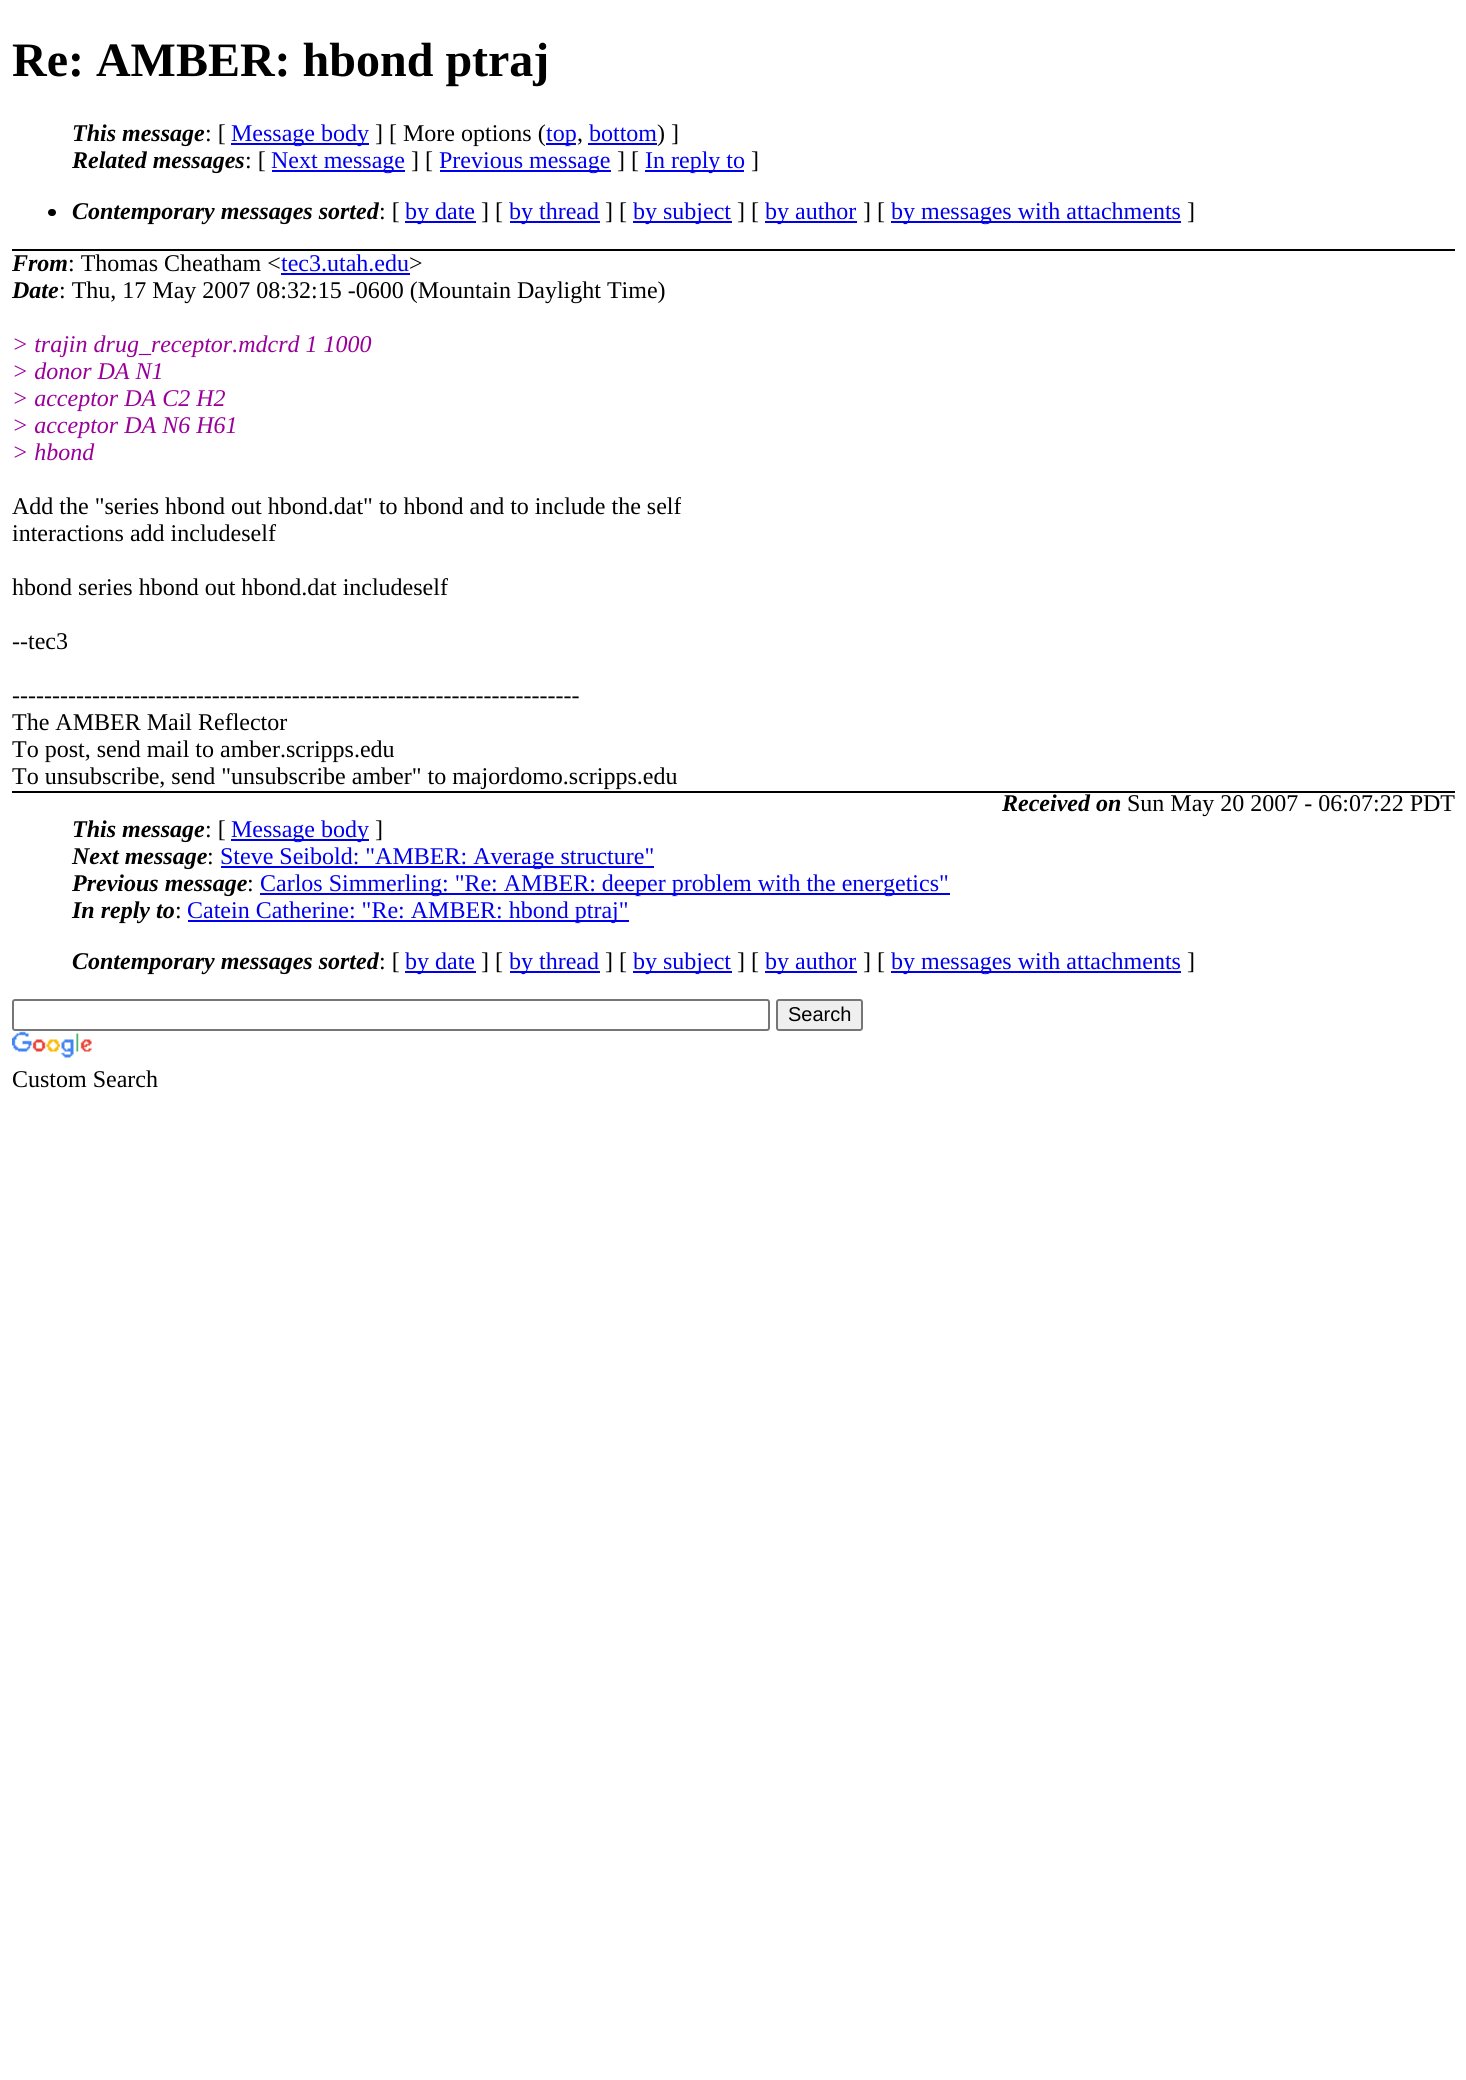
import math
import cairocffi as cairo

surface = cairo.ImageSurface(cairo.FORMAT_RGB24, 1466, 2080)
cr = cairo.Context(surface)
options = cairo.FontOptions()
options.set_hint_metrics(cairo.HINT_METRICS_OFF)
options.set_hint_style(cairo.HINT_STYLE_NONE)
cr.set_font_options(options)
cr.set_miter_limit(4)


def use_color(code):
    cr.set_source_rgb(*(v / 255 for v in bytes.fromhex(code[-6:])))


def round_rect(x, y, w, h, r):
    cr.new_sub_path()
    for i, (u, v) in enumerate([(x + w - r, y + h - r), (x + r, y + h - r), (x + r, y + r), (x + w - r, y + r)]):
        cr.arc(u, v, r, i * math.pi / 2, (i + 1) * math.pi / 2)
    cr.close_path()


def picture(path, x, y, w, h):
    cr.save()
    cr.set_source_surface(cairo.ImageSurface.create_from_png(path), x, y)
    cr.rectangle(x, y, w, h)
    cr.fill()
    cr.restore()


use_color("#ffffff")
cr.paint()
use_color("#000000")
cr.rectangle(12, 249, 1443, 2)
cr.fill()
cr.select_font_face("Liberation Serif", cairo.FONT_SLANT_NORMAL, cairo.FONT_WEIGHT_BOLD)
cr.set_font_size(48)
cr.move_to(12, 76)
cr.show_text("Re: AMBER: hbond ptraj")
cr.select_font_face("Liberation Serif", cairo.FONT_SLANT_ITALIC, cairo.FONT_WEIGHT_BOLD)
cr.set_font_size(24)
cr.move_to(72, 141)
cr.show_text("This message")
cr.select_font_face("Liberation Serif")
cr.move_to(205, 141)
cr.show_text(": [")
use_color("#0000ee")
cr.rectangle(231, 143, 138, 2)
cr.fill()
cr.move_to(231, 141)
cr.show_text("Message body")
use_color("#000000")
cr.move_to(375, 141)
cr.show_text("] [ More options (")
use_color("#0000ee")
cr.rectangle(546, 143, 30, 2)
cr.fill()
cr.move_to(546, 141)
cr.show_text("top")
use_color("#000000")
cr.move_to(577, 141)
cr.show_text(",")
use_color("#0000ee")
cr.move_to(589, 141)
cr.show_text("bottom")
cr.rectangle(588, 143, 69, 2)
cr.fill()
use_color("#000000")
cr.move_to(657, 141)
cr.show_text(") ]")
cr.select_font_face("Liberation Serif", cairo.FONT_SLANT_ITALIC, cairo.FONT_WEIGHT_BOLD)
cr.move_to(72, 168)
cr.show_text("Related messages")
cr.select_font_face("Liberation Serif")
cr.move_to(245, 168)
cr.show_text(": [")
use_color("#0000ee")
cr.rectangle(272, 170, 133, 2)
cr.fill()
cr.move_to(271, 168)
cr.show_text("Next message")
use_color("#000000")
cr.move_to(411, 168)
cr.show_text("] [")
use_color("#0000ee")
cr.rectangle(440, 170, 171, 2)
cr.fill()
cr.move_to(439, 168)
cr.show_text("Previous message")
use_color("#000000")
cr.move_to(617, 168)
cr.show_text("] [")
use_color("#0000ee")
cr.rectangle(645, 170, 99, 2)
cr.fill()
cr.move_to(645, 168)
cr.show_text("In reply to")
use_color("#000000")
cr.move_to(751, 168)
cr.show_text("]")
round_rect(48, 209, 8, 7, 3.5)
cr.fill()
cr.select_font_face("Liberation Serif", cairo.FONT_SLANT_ITALIC, cairo.FONT_WEIGHT_BOLD)
cr.move_to(72, 219)
cr.show_text("Contemporary messages sorted")
cr.select_font_face("Liberation Serif")
cr.move_to(379, 219)
cr.show_text(": [")
use_color("#0000ee")
cr.rectangle(405, 221, 71, 2)
cr.fill()
cr.move_to(405, 219)
cr.show_text("by date")
use_color("#000000")
cr.move_to(481, 219)
cr.show_text("] [")
use_color("#0000ee")
cr.rectangle(510, 221, 90, 2)
cr.fill()
cr.move_to(509, 219)
cr.show_text("by thread")
use_color("#000000")
cr.move_to(605, 219)
cr.show_text("] [")
use_color("#0000ee")
cr.rectangle(633, 221, 99, 2)
cr.fill()
cr.move_to(633, 219)
cr.show_text("by subject")
use_color("#000000")
cr.move_to(737, 219)
cr.show_text("] [")
use_color("#0000ee")
cr.rectangle(765, 221, 92, 2)
cr.fill()
cr.move_to(765, 219)
cr.show_text("by author")
use_color("#000000")
cr.move_to(863, 219)
cr.show_text("] [")
use_color("#0000ee")
cr.rectangle(891, 221, 290, 2)
cr.fill()
cr.move_to(891, 219)
cr.show_text("by messages with attachments")
use_color("#000000")
cr.move_to(1187, 219)
cr.show_text("]")
cr.select_font_face("Liberation Serif", cairo.FONT_SLANT_ITALIC, cairo.FONT_WEIGHT_BOLD)
cr.move_to(12, 271)
cr.show_text("From")
cr.select_font_face("Liberation Serif")
cr.move_to(68, 271)
cr.show_text(": Thomas Cheatham <")
use_color("#0000ee")
cr.move_to(281, 271)
cr.show_text("tec3.utah.edu")
cr.rectangle(281, 273, 129, 2)
cr.fill()
use_color("#000000")
cr.move_to(409, 271)
cr.show_text(">")
cr.select_font_face("Liberation Serif", cairo.FONT_SLANT_ITALIC, cairo.FONT_WEIGHT_BOLD)
cr.move_to(12, 298)
cr.show_text("Date")
cr.select_font_face("Liberation Serif")
cr.move_to(59, 298)
cr.show_text(": Thu, 17 May 2007 08:32:15 -0600 (Mountain Daylight Time)")
cr.select_font_face("Liberation Serif", cairo.FONT_SLANT_ITALIC)
use_color("#990099")
cr.move_to(12, 352)
cr.show_text("> trajin drug_receptor.mdcrd 1 1000")
cr.move_to(12, 379)
cr.show_text("> donor DA N1")
cr.move_to(12, 406)
cr.show_text("> acceptor DA C2 H2")
cr.move_to(12, 433)
cr.show_text("> acceptor DA N6 H61")
cr.move_to(12, 460)
cr.show_text("> hbond")
cr.select_font_face("Liberation Serif")
use_color("#000000")
cr.move_to(12, 514)
cr.show_text("Add the \"series hbond out hbond.dat\" to hbond and to include the self")
cr.move_to(12, 541)
cr.show_text("interactions add includeself")
cr.move_to(12, 595)
cr.show_text("hbond series hbond out hbond.dat includeself")
cr.move_to(12, 649)
cr.show_text("--tec3")
cr.move_to(12, 703)
cr.show_text("-----------------------------------------------------------------------")
cr.move_to(12, 730)
cr.show_text("The AMBER Mail Reflector")
cr.move_to(12, 757)
cr.show_text("To post, send mail to amber.scripps.edu")
cr.move_to(12, 784)
cr.show_text("To unsubscribe, send \"unsubscribe amber\" to majordomo.scripps.edu")
cr.select_font_face("Liberation Serif", cairo.FONT_SLANT_ITALIC, cairo.FONT_WEIGHT_BOLD)
cr.move_to(1002, 811)
cr.show_text("Received on")
cr.select_font_face("Liberation Serif")
cr.move_to(1127, 811)
cr.show_text("Sun May 20 2007 - 06:07:22 PDT")
cr.rectangle(12, 791, 1443, 2)
cr.fill()
cr.select_font_face("Liberation Serif", cairo.FONT_SLANT_ITALIC, cairo.FONT_WEIGHT_BOLD)
cr.move_to(72, 837)
cr.show_text("This message")
cr.select_font_face("Liberation Serif")
cr.move_to(205, 837)
cr.show_text(": [")
use_color("#0000ee")
cr.rectangle(231, 839, 138, 2)
cr.fill()
cr.move_to(231, 837)
cr.show_text("Message body")
use_color("#000000")
cr.move_to(375, 837)
cr.show_text("]")
cr.select_font_face("Liberation Serif", cairo.FONT_SLANT_ITALIC, cairo.FONT_WEIGHT_BOLD)
cr.move_to(72, 864)
cr.show_text("Next message")
cr.select_font_face("Liberation Serif")
cr.move_to(207, 864)
cr.show_text(":")
use_color("#0000ee")
cr.rectangle(221, 866, 433, 2)
cr.fill()
cr.move_to(220, 864)
cr.show_text("Steve Seibold: \"AMBER: Average structure\"")
cr.select_font_face("Liberation Serif", cairo.FONT_SLANT_ITALIC, cairo.FONT_WEIGHT_BOLD)
use_color("#000000")
cr.move_to(72, 891)
cr.show_text("Previous message")
cr.select_font_face("Liberation Serif")
cr.move_to(247, 891)
cr.show_text(":")
use_color("#0000ee")
cr.rectangle(260, 893, 690, 2)
cr.fill()
cr.move_to(260, 891)
cr.show_text("Carlos Simmerling: \"Re: AMBER: deeper problem with the energetics\"")
cr.select_font_face("Liberation Serif", cairo.FONT_SLANT_ITALIC, cairo.FONT_WEIGHT_BOLD)
use_color("#000000")
cr.move_to(72, 918)
cr.show_text("In reply to")
cr.select_font_face("Liberation Serif")
cr.move_to(175, 918)
cr.show_text(":")
use_color("#0000ee")
cr.rectangle(188, 920, 441, 2)
cr.fill()
cr.move_to(187, 918)
cr.show_text("Catein Catherine: \"Re: AMBER: hbond ptraj\"")
cr.select_font_face("Liberation Serif", cairo.FONT_SLANT_ITALIC, cairo.FONT_WEIGHT_BOLD)
use_color("#000000")
cr.move_to(72, 969)
cr.show_text("Contemporary messages sorted")
cr.select_font_face("Liberation Serif")
cr.move_to(379, 969)
cr.show_text(": [")
use_color("#0000ee")
cr.rectangle(405, 971, 71, 2)
cr.fill()
cr.move_to(405, 969)
cr.show_text("by date")
use_color("#000000")
cr.move_to(481, 969)
cr.show_text("] [")
use_color("#0000ee")
cr.rectangle(510, 971, 90, 2)
cr.fill()
cr.move_to(509, 969)
cr.show_text("by thread")
use_color("#000000")
cr.move_to(605, 969)
cr.show_text("] [")
use_color("#0000ee")
cr.rectangle(633, 971, 99, 2)
cr.fill()
cr.move_to(633, 969)
cr.show_text("by subject")
use_color("#000000")
cr.move_to(737, 969)
cr.show_text("] [")
use_color("#0000ee")
cr.rectangle(765, 971, 92, 2)
cr.fill()
cr.move_to(765, 969)
cr.show_text("by author")
use_color("#000000")
cr.move_to(863, 969)
cr.show_text("] [")
use_color("#0000ee")
cr.rectangle(891, 971, 290, 2)
cr.fill()
cr.move_to(891, 969)
cr.show_text("by messages with attachments")
use_color("#000000")
cr.move_to(1187, 969)
cr.show_text("]")
round_rect(13, 1000, 756, 30, 2)
use_color("#767676")
cr.stroke()
use_color("#efefef")
round_rect(777, 1000, 85, 30, 2)
cr.fill_preserve()
use_color("#767676")
cr.stroke()
cr.select_font_face("Liberation Sans")
cr.set_font_size(20)
use_color("#000000")
cr.move_to(788, 1021)
cr.show_text("Search")
picture("img1.png", 12, 1031, 80, 27)
cr.select_font_face("Liberation Serif")
cr.set_font_size(24)
cr.move_to(12, 1087)
cr.show_text("Custom Search")
surface.write_to_png("result.png")
